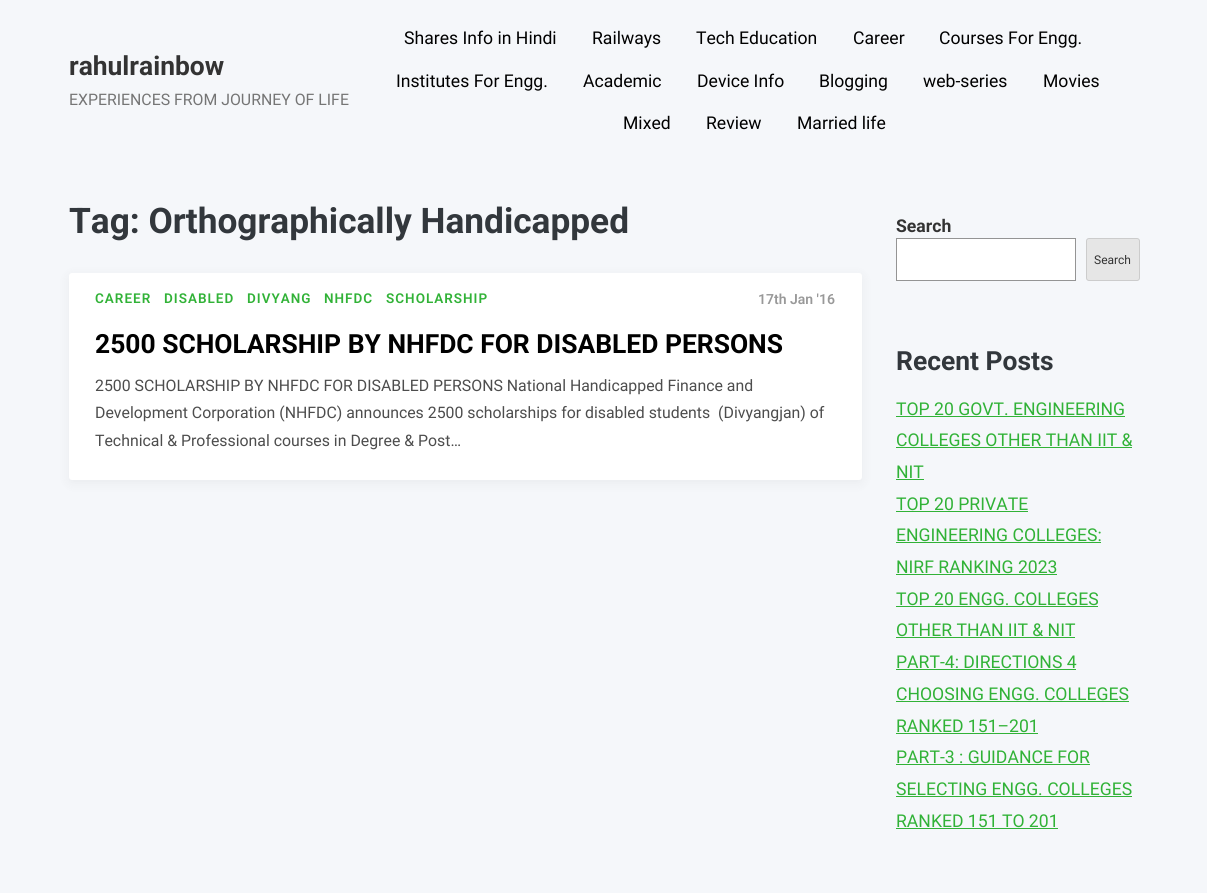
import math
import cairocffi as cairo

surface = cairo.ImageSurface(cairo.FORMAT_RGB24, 1207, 893)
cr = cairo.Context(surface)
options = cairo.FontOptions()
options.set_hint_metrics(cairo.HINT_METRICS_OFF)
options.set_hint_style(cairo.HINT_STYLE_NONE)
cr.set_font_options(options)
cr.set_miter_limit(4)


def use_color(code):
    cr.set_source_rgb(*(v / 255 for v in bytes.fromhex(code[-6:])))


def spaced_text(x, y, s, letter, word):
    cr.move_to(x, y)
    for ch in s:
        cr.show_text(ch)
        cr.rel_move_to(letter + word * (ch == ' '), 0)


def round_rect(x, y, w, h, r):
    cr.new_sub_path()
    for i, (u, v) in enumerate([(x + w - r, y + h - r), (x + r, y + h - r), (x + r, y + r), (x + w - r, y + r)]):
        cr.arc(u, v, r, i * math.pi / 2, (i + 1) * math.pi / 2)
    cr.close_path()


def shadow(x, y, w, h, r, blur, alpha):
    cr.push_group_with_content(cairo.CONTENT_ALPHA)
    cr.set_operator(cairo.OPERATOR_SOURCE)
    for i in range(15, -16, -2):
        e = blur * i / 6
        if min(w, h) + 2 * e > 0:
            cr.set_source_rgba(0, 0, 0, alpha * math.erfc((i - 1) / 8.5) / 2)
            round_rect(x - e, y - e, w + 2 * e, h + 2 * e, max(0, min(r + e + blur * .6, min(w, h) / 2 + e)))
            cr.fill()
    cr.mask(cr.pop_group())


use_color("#f5f7fa")
cr.paint()
cr.select_font_face("Roboto", cairo.FONT_SLANT_NORMAL, cairo.FONT_WEIGHT_BOLD)
cr.set_font_size(26.4)
use_color("#333333")
cr.move_to(69, 75)
cr.show_text("rahulrainbow")
cr.select_font_face("Roboto")
cr.set_font_size(15.85)
use_color("#757575")
cr.move_to(69, 105)
cr.show_text("EXPERIENCES FROM JOURNEY OF LIFE")
cr.set_font_size(17.6)
use_color("#000000")
cr.move_to(404, 44)
cr.show_text("Shares Info in Hindi")
cr.move_to(592, 44)
cr.show_text("Railways")
cr.move_to(696, 44)
cr.show_text("Tech Education")
cr.move_to(853, 44)
cr.show_text("Career")
cr.move_to(939, 44)
cr.show_text("Courses For Engg.")
cr.move_to(396, 87)
cr.show_text("Institutes For Engg.")
cr.move_to(583, 87)
cr.show_text("Academic")
cr.move_to(697, 87)
cr.show_text("Device Info")
cr.move_to(819, 87)
cr.show_text("Blogging")
cr.move_to(923, 87)
cr.show_text("web-series")
cr.move_to(1043, 87)
cr.show_text("Movies")
cr.move_to(623, 129)
cr.show_text("Mixed")
cr.move_to(706, 129)
cr.show_text("Review")
cr.move_to(797, 129)
cr.show_text("Married life")
cr.select_font_face("Roboto", cairo.FONT_SLANT_NORMAL, cairo.FONT_WEIGHT_BOLD)
cr.set_font_size(35.25)
use_color("#32373c")
cr.move_to(69, 233)
cr.show_text("Tag: Orthographically Handicapped")
use_color("#000000")
shadow(69, 276, 793, 207, 3, 6, 0.05)
use_color("#ffffff")
round_rect(69, 273, 793, 207, 3)
cr.fill()
cr.select_font_face("Roboto SemiBold")
cr.set_font_size(13.5)
use_color("#31b237")
spaced_text(95, 303, "CAREER", 1, 0)
spaced_text(164, 303, "DISABLED", 1, 0)
spaced_text(247, 303, "DIVYANG", 1, 0)
spaced_text(324, 303, "NHFDC", 1, 0)
spaced_text(386, 303, "SCHOLARSHIP", 1, 0)
cr.set_font_size(14)
use_color("#999999")
cr.move_to(758, 304)
cr.show_text("17th Jan '16")
cr.select_font_face("Roboto", cairo.FONT_SLANT_NORMAL, cairo.FONT_WEIGHT_BOLD)
cr.set_font_size(26.4)
use_color("#000000")
cr.move_to(95, 353)
cr.show_text("2500 SCHOLARSHIP BY NHFDC FOR DISABLED PERSONS")
cr.select_font_face("Roboto")
cr.set_font_size(15.85)
use_color("#4d4d4d")
cr.move_to(95, 391)
cr.show_text("2500 SCHOLARSHIP BY NHFDC FOR DISABLED PERSONS National Handicapped Finance and")
cr.move_to(95, 418)
cr.show_text("Development Corporation (NHFDC) announces 2500 scholarships for disabled students  (Divyangjan) of")
cr.move_to(95, 446)
cr.show_text("Technical & Professional courses in Degree & Post…")
cr.select_font_face("Roboto", cairo.FONT_SLANT_NORMAL, cairo.FONT_WEIGHT_BOLD)
cr.set_font_size(17.6)
use_color("#333333")
cr.move_to(896, 232)
cr.show_text("Search")
use_color("#ffffff")
cr.rectangle(896.5, 238.5, 179, 42)
cr.fill_preserve()
use_color("#949494")
cr.set_line_width(1)
cr.stroke()
use_color("#e6e6e6")
round_rect(1086.5, 238.5, 53, 42, 2.5)
cr.fill_preserve()
use_color("#cccccc")
cr.stroke()
cr.select_font_face("Roboto")
cr.set_font_size(12)
use_color("#333333")
cr.move_to(1094, 264)
cr.show_text("Search")
cr.select_font_face("Roboto", cairo.FONT_SLANT_NORMAL, cairo.FONT_WEIGHT_BOLD)
cr.set_font_size(26.4)
use_color("#32373c")
cr.move_to(896, 370)
cr.show_text("Recent Posts")
cr.select_font_face("Roboto")
cr.set_font_size(17.6)
use_color("#31b237")
cr.move_to(896, 415)
cr.show_text("TOP 20 GOVT. ENGINEERING")
cr.rectangle(896, 416, 229, 1)
cr.fill()
cr.move_to(896, 446)
cr.show_text("COLLEGES OTHER THAN IIT &")
cr.rectangle(896, 447, 236, 1)
cr.fill()
cr.move_to(896, 478)
cr.show_text("NIT")
cr.rectangle(896, 479, 28, 1)
cr.fill()
cr.move_to(896, 510)
cr.show_text("TOP 20 PRIVATE")
cr.rectangle(896, 511, 132, 1)
cr.fill()
cr.move_to(896, 541)
cr.show_text("ENGINEERING COLLEGES:")
cr.rectangle(896, 542, 205, 1)
cr.fill()
cr.move_to(896, 573)
cr.show_text("NIRF RANKING 2023")
cr.rectangle(896, 574, 161, 1)
cr.fill()
cr.move_to(896, 605)
cr.show_text("TOP 20 ENGG. COLLEGES")
cr.rectangle(896, 606, 202, 1)
cr.fill()
cr.move_to(896, 636)
cr.show_text("OTHER THAN IIT & NIT")
cr.rectangle(896, 637, 179, 1)
cr.fill()
cr.move_to(896, 668)
cr.show_text("PART-4: DIRECTIONS 4")
cr.rectangle(896, 669, 180, 1)
cr.fill()
cr.move_to(896, 700)
cr.show_text("CHOOSING ENGG. COLLEGES")
cr.rectangle(896, 701, 233, 1)
cr.fill()
cr.move_to(896, 732)
cr.show_text("RANKED 151–201")
cr.rectangle(896, 733, 142, 1)
cr.fill()
cr.move_to(896, 763)
cr.show_text("PART-3 : GUIDANCE FOR")
cr.rectangle(896, 764, 194, 1)
cr.fill()
cr.move_to(896, 795)
cr.show_text("SELECTING ENGG. COLLEGES")
cr.rectangle(896, 796, 236, 1)
cr.fill()
cr.move_to(896, 827)
cr.show_text("RANKED 151 TO 201")
cr.rectangle(896, 828, 162, 1)
cr.fill()
surface.write_to_png("result.png")
